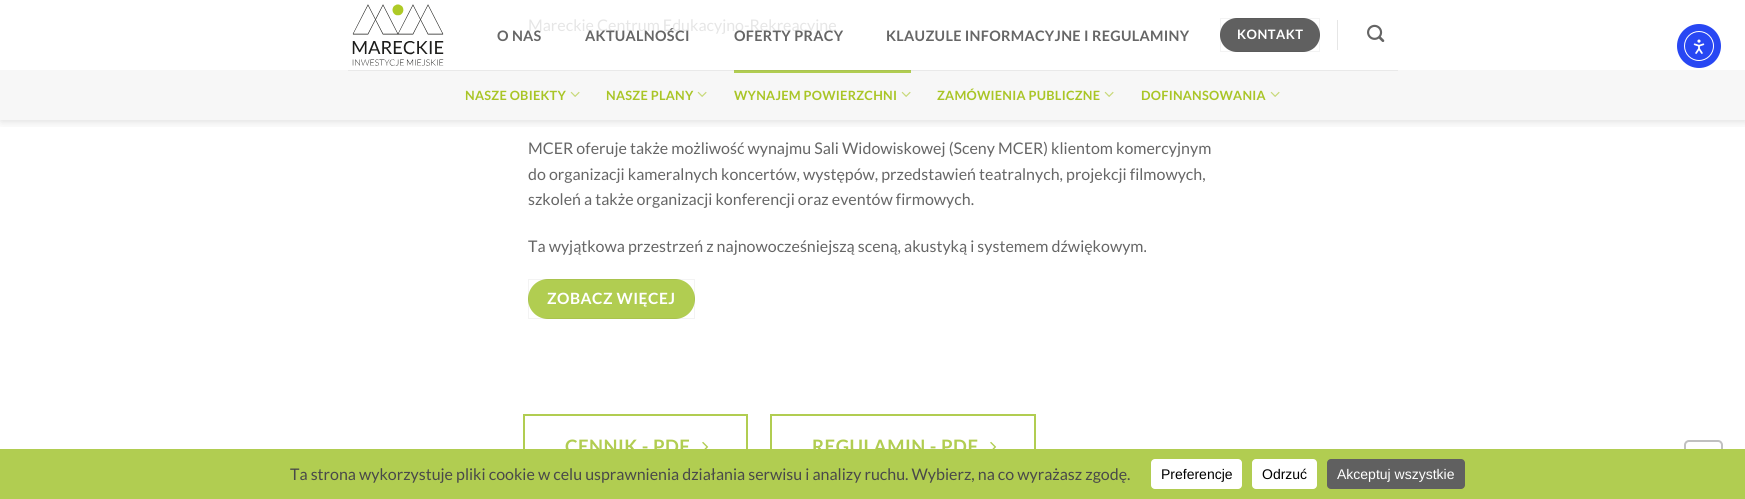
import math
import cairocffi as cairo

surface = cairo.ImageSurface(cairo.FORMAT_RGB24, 1745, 499)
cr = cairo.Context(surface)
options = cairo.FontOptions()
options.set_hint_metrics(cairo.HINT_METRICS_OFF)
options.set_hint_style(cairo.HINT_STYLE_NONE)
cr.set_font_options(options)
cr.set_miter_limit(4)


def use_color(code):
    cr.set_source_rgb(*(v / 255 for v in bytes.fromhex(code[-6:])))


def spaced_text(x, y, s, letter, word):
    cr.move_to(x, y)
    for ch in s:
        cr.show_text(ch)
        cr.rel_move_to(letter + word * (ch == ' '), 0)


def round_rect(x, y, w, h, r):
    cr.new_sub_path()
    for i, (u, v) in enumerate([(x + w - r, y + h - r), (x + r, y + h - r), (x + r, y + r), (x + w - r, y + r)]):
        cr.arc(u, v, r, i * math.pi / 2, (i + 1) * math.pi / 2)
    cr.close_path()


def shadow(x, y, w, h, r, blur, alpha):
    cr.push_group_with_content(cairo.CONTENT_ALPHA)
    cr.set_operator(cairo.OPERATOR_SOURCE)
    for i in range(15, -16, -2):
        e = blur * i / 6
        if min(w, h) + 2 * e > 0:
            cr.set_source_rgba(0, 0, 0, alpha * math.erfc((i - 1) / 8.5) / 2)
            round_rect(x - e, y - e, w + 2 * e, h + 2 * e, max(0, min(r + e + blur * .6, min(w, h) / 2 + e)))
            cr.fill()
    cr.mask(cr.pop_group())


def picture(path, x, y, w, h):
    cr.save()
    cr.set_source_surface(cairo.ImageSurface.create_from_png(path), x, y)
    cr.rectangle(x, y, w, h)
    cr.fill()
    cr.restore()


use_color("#ffffff")
cr.paint()
cr.select_font_face("Lato")
cr.set_font_size(16)
use_color("#e6e6e6")
cr.move_to(528, 31)
cr.show_text("Mareckie Centrum Edukacyjno-Rekreacyjne")
use_color("#666666")
cr.move_to(528, 154)
cr.show_text("MCER oferuje także możliwość wynajmu Sali Widowiskowej (Sceny MCER) klientom komercyjnym")
cr.move_to(528, 180)
cr.show_text("do organizacji kameralnych koncertów, występów, przedstawień teatralnych, projekcji filmowych,")
cr.move_to(528, 205)
cr.show_text("szkoleń a także organizacji konferencji oraz eventów firmowych.")
cr.move_to(528, 252)
cr.show_text("Ta wyjątkowa przestrzeń z najnowocześniejszą sceną, akustyką i systemem dźwiękowym.")
use_color("#b1cd51")
round_rect(528, 279, 167, 40, 20)
cr.fill()
cr.rectangle(528.5, 279.5, 166, 39)
cr.set_source_rgba(0, 0, 0, 0.05)
cr.set_line_width(1)
cr.stroke()
cr.select_font_face("Lato", cairo.FONT_SLANT_NORMAL, cairo.FONT_WEIGHT_BOLD)
cr.set_font_size(15.5)
use_color("#ffffff")
spaced_text(547, 304, "ZOBACZ WIĘCEJ", 0.5, 0)
cr.rectangle(524, 415, 223, 62)
use_color("#b1cd51")
cr.set_line_width(2)
cr.stroke()
cr.set_font_size(18.5)
spaced_text(565, 453, "CENNIK - PDF", 0.5, 0)
picture("img1.png", 702, 441, 7, 8)
cr.rectangle(771, 415, 264, 62)
cr.stroke()
spaced_text(812, 453, "REGULAMIN - PDF", 0.5, 0)
picture("img1.png", 990, 441, 7, 8)
cr.save()
cr.rectangle(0, 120, 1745, 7)
cr.clip()
use_color("#000000")
shadow(1, 1, 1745, 120, 0, 5, 0.15)
cr.restore()
picture("img2.png", 352, 4, 92, 62)
cr.set_font_size(14.4)
use_color("#666666")
spaced_text(497, 41, "O NAS", 0.3, 0)
spaced_text(585, 41, "AKTUALNOŚCI", 0.3, 0)
spaced_text(734, 41, "OFERTY PRACY", 0.3, 0)
spaced_text(886, 41, "KLAUZULE INFORMACYJNE I REGULAMINY", 0.3, 0)
use_color("#606060")
round_rect(1220, 18, 100, 34, 17)
cr.fill()
cr.rectangle(1220.5, 18.5, 99, 33)
cr.set_source_rgba(0, 0, 0, 0.05)
cr.set_line_width(1)
cr.stroke()
cr.set_font_size(13)
use_color("#ffffff")
spaced_text(1237, 39, "KONTAKT", 0.5, 0)
use_color("#e6e6e6")
cr.rectangle(1337, 20, 1, 30)
cr.fill()
picture("img3.png", 1367, 24, 18, 18)
use_color("#f7f7f7")
cr.rectangle(0, 70, 1745, 50)
cr.fill()
use_color("#b1cd51")
cr.rectangle(734, 70, 177, 3)
cr.fill()
cr.set_source_rgba(0.4, 0.4, 0.4, 0.1)
cr.rectangle(348, 70, 1050, 1)
cr.fill()
cr.set_font_size(12.75)
use_color("#a9c526")
spaced_text(465, 100, "NASZE OBIEKTY", 0.25, 0)
picture("img4.png", 570, 91, 10, 6)
spaced_text(606, 100, "NASZE PLANY", 0.25, 0)
picture("img4.png", 697, 91, 10, 6)
spaced_text(734, 100, "WYNAJEM POWIERZCHNI", 0.25, 0)
picture("img4.png", 901, 91, 10, 6)
spaced_text(937, 100, "ZAMÓWIENIA PUBLICZNE", 0.25, 0)
picture("img4.png", 1104, 91, 10, 6)
spaced_text(1141, 100, "DOFINANSOWANIA", 0.25, 0)
picture("img4.png", 1270, 91, 10, 6)
round_rect(1685, 441, 37, 37, 4)
use_color("#c0c0c0")
cr.set_line_width(2)
cr.stroke()
use_color("#2847f3")
cr.arc(1699, 46, 22, 0, 2 * math.pi)
cr.fill()
cr.arc(1699, 46, 14.5, 0, 2 * math.pi)
use_color("#ffffff")
cr.set_line_width(1)
cr.stroke()
picture("img5.png", 1693, 39, 12, 15)
use_color("#b1cd51")
cr.rectangle(0, 449, 1745, 50)
cr.fill()
cr.select_font_face("Lato")
cr.set_font_size(16)
use_color("#494949")
cr.move_to(290, 480)
cr.show_text("Ta strona wykorzystuje pliki cookie w celu usprawnienia działania serwisu i analizy ruchu. Wybierz, na co wyrażasz zgodę.")
use_color("#ffffff")
round_rect(1151, 459, 91, 30, 4)
cr.fill()
cr.select_font_face("Liberation Sans")
cr.set_font_size(14)
use_color("#000000")
cr.move_to(1161, 479)
cr.show_text("Preferencje")
use_color("#ffffff")
round_rect(1252, 459, 65, 30, 4)
cr.fill()
use_color("#000000")
cr.move_to(1262, 479)
cr.show_text("Odrzuć")
use_color("#606060")
round_rect(1327, 459, 138, 30, 4)
cr.fill()
use_color("#ffffff")
cr.move_to(1337, 479)
cr.show_text("Akceptuj wszystkie")
surface.write_to_png("result.png")
